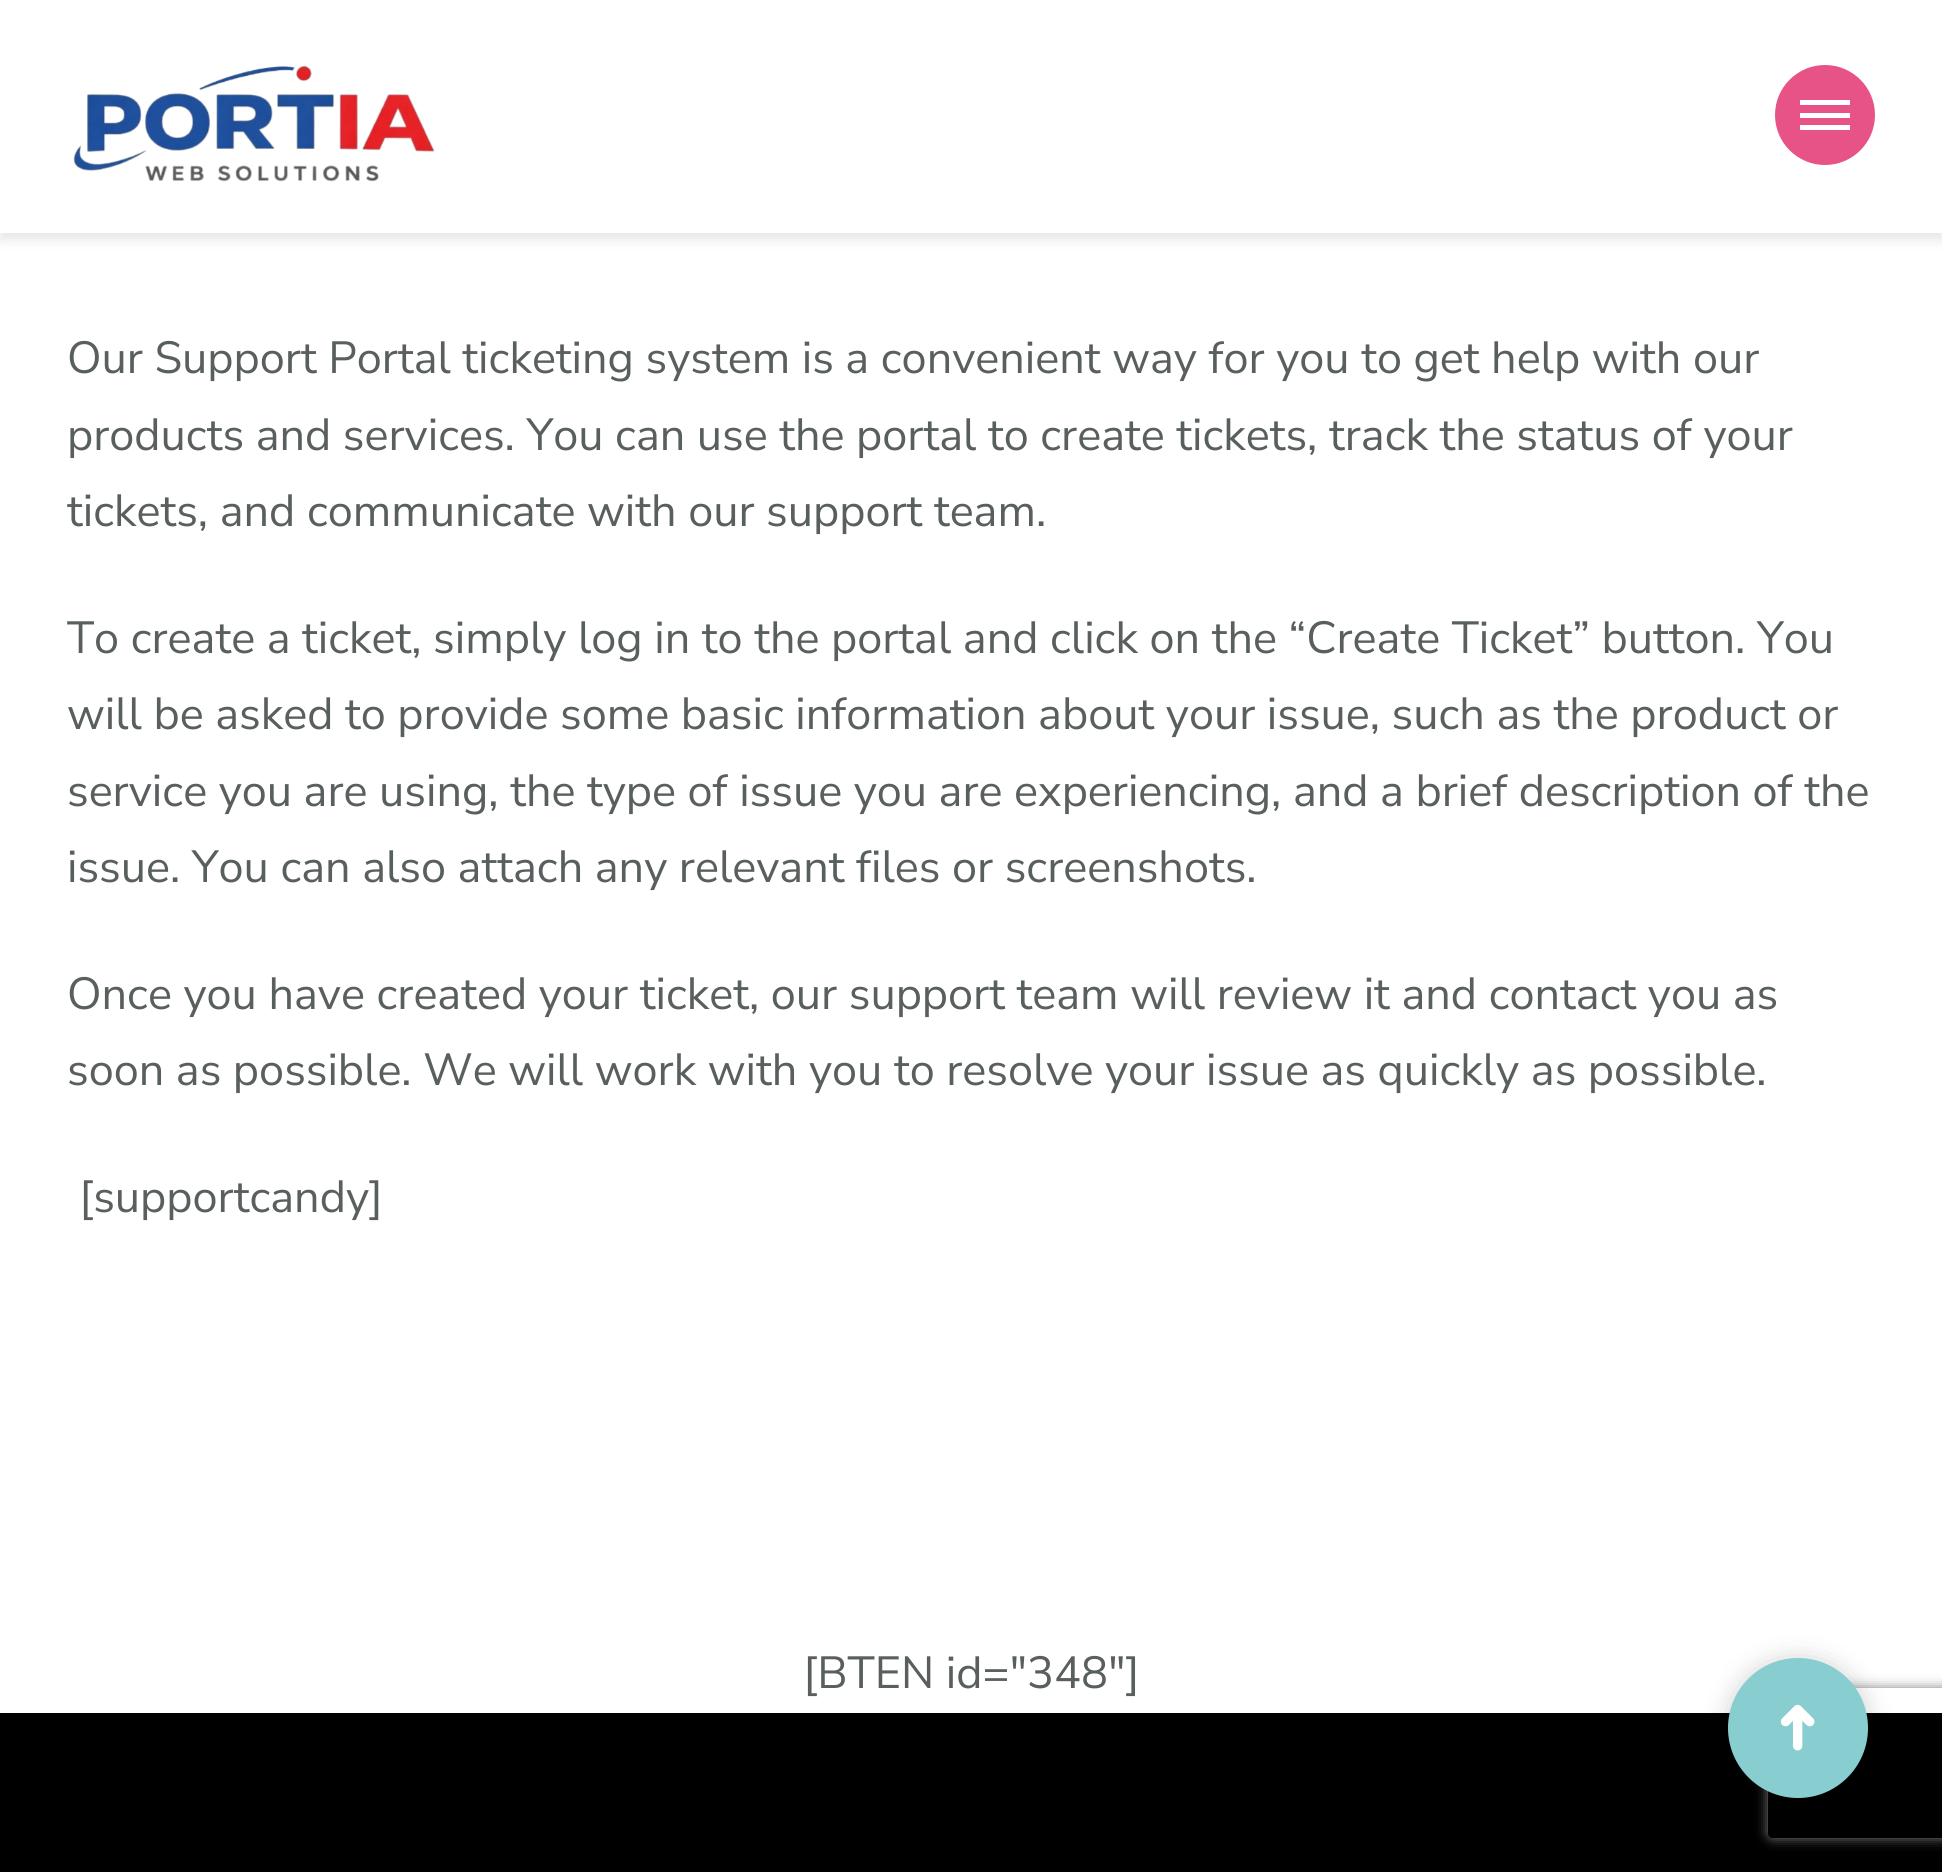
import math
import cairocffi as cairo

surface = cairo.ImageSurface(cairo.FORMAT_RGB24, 1942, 1872)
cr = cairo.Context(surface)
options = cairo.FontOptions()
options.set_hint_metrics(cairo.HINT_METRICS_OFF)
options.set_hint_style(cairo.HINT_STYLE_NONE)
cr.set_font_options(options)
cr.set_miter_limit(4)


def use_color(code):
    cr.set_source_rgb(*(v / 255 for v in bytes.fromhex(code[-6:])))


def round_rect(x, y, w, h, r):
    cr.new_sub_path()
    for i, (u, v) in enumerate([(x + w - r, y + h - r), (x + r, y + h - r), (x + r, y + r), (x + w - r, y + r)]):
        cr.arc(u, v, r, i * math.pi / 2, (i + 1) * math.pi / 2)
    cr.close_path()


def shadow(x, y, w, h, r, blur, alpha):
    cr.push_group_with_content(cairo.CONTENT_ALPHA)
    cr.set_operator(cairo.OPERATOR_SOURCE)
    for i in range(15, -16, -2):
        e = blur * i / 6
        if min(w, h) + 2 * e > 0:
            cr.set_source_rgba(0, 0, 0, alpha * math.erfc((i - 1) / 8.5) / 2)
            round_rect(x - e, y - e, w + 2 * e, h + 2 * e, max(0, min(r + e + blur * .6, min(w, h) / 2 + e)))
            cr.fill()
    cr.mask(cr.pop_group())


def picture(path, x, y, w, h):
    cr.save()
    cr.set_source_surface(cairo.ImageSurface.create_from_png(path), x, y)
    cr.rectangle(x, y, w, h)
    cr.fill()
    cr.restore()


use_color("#ffffff")
cr.paint()
use_color("#000000")
shadow(0, 8, 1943, 232, 0, 6, 0.1)
use_color("#ffffff")
cr.rectangle(0, 0, 1942, 233)
cr.fill()
picture("img1.png", 73, 65, 362, 117)
use_color("#e75387")
cr.arc(1825, 115, 50, 0, 2 * math.pi)
cr.fill()
use_color("#ffffff")
cr.rectangle(1800, 100, 50, 5)
cr.fill()
cr.rectangle(1800, 113, 50, 5)
cr.fill()
cr.rectangle(1800, 125, 50, 5)
cr.fill()
cr.select_font_face("Nunito Sans")
cr.set_font_size(45)
use_color("#595f5f")
cr.move_to(67, 373)
cr.show_text("Our Support Portal ticketing system is a convenient way for you to get help with our")
cr.move_to(67, 450)
cr.show_text("products and services. You can use the portal to create tickets, track the status of your")
cr.move_to(67, 526)
cr.show_text("tickets, and communicate with our support team.")
cr.move_to(67, 653)
cr.show_text("To create a ticket, simply log in to the portal and click on the “Create Ticket” button. You")
cr.move_to(67, 729)
cr.show_text("will be asked to provide some basic information about your issue, such as the product or")
cr.move_to(67, 806)
cr.show_text("service you are using, the type of issue you are experiencing, and a brief description of the")
cr.move_to(67, 882)
cr.show_text("issue. You can also attach any relevant files or screenshots.")
cr.move_to(67, 1009)
cr.show_text("Once you have created your ticket, our support team will review it and contact you as")
cr.move_to(67, 1085)
cr.show_text("soon as possible. We will work with you to resolve your issue as quickly as possible.")
cr.move_to(79, 1212)
cr.show_text("[supportcandy]")
cr.move_to(803, 1688)
cr.show_text("[BTEN id=\"348\"]")
use_color("#000000")
cr.rectangle(0, 1713, 1942, 159)
cr.fill()
use_color("#000000")
shadow(1728, 1660, 140, 140, 70, 12.5, 0.2)
cr.save()
cr.set_fill_rule(cairo.FILL_RULE_EVEN_ODD)
cr.new_path()
cr.move_to(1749, 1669)
cr.line_to(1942, 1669)
cr.line_to(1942, 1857)
cr.line_to(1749, 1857)
cr.close_path()
cr.move_to(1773, 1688)
cr.line_to(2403, 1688)
cr.curve_to(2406, 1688, 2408, 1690, 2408, 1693)
cr.line_to(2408, 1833)
cr.curve_to(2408, 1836, 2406, 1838, 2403, 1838)
cr.line_to(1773, 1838)
cr.curve_to(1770, 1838, 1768, 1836, 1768, 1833)
cr.line_to(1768, 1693)
cr.curve_to(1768, 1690, 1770, 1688, 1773, 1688)
cr.close_path()
cr.clip()
use_color("#808080")
shadow(1768, 1688, 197, 150, 5, 6, 1)
cr.restore()
use_color("#88ced0")
cr.arc(1798, 1728, 70, 0, 2 * math.pi)
cr.fill()
cr.select_font_face("DejaVu Sans", cairo.FONT_SLANT_NORMAL, cairo.FONT_WEIGHT_BOLD)
cr.set_font_size(62)
use_color("#ffffff")
cr.save()
cr.translate(1818, 1754)
cr.rotate(-90 * math.pi / 180)
cr.move_to(0, 0)
cr.show_text("➜")
cr.restore()
surface.write_to_png("result.png")
